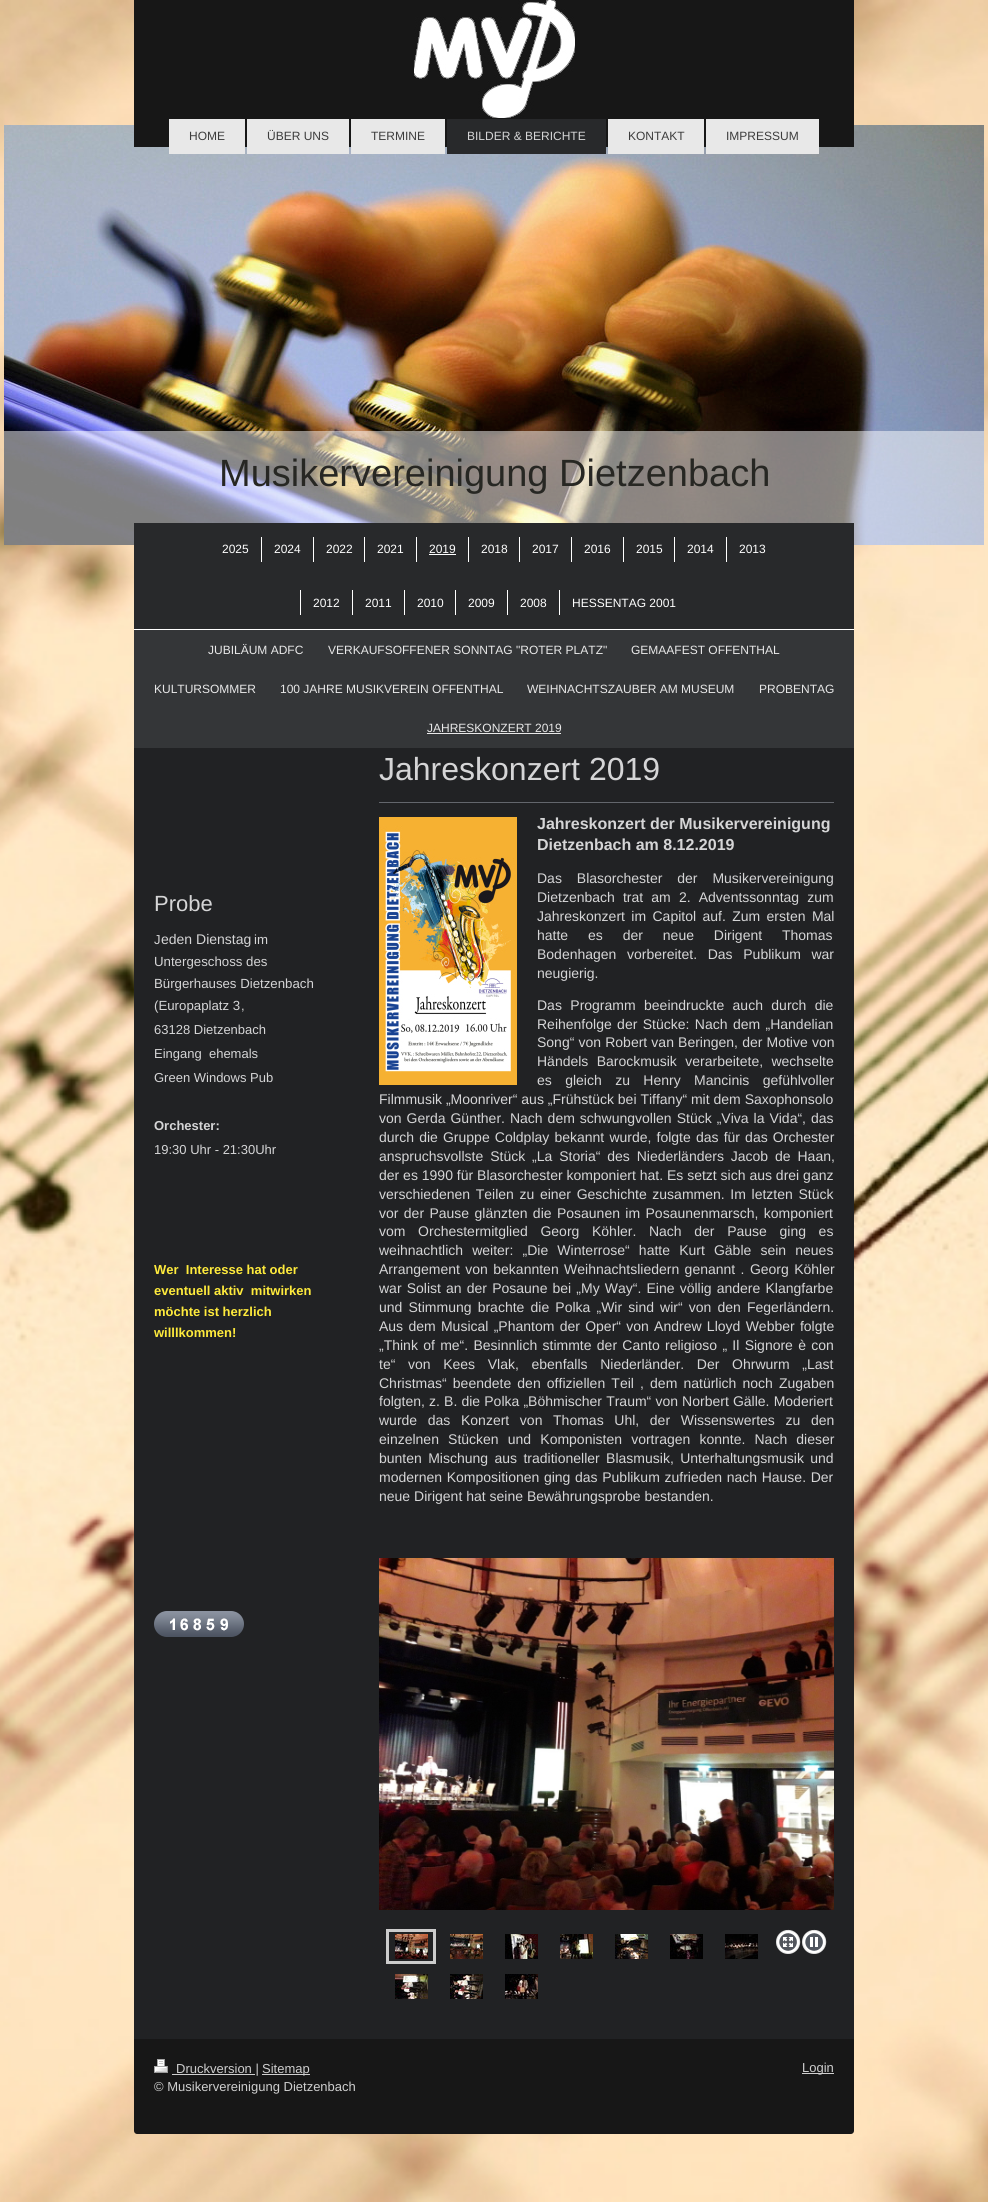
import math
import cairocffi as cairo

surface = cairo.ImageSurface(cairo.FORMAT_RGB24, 988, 2202)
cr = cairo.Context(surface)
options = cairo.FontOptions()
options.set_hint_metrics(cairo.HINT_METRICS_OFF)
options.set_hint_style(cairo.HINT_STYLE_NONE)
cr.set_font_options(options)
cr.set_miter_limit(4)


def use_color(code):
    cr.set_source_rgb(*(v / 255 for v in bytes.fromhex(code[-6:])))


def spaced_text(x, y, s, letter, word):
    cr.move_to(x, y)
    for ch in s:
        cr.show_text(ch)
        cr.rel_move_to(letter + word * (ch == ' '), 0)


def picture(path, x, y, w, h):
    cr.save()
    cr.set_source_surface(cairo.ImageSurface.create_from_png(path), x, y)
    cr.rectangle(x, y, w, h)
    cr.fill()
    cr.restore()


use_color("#ffffff")
cr.paint()
picture("img1.png", 0, 0, 988, 2202)
picture("img3.png", 4, 125, 980, 420)
use_color("#171717")
cr.rectangle(134, 0, 720, 147)
cr.fill()
picture("img2.png", 414, 0, 161, 118)
use_color("#e8e8e8")
cr.rectangle(169, 119, 76, 35)
cr.fill()
cr.select_font_face("Liberation Sans")
cr.set_font_size(12)
use_color("#3c3c3c")
cr.move_to(189, 140)
cr.show_text("HOME")
use_color("#e8e8e8")
cr.rectangle(247, 119, 102, 35)
cr.fill()
use_color("#3c3c3c")
cr.move_to(267, 140)
cr.show_text("ÜBER UNS")
use_color("#e8e8e8")
cr.rectangle(351, 119, 94, 35)
cr.fill()
use_color("#3c3c3c")
cr.move_to(371, 140)
cr.show_text("TERMINE")
use_color("#28292b")
cr.rectangle(447, 119, 159, 35)
cr.fill()
use_color("#d5d5d6")
cr.move_to(467, 140)
cr.show_text("BILDER & BERICHTE")
use_color("#e8e8e8")
cr.rectangle(608, 119, 96, 35)
cr.fill()
use_color("#3c3c3c")
cr.move_to(628, 140)
cr.show_text("KONTAKT")
use_color("#e8e8e8")
cr.rectangle(706, 119, 113, 35)
cr.fill()
use_color("#3c3c3c")
cr.move_to(726, 140)
cr.show_text("IMPRESSUM")
cr.set_source_rgba(1, 1, 1, 0.5)
cr.rectangle(4, 431, 980, 114)
cr.fill()
cr.set_font_size(38)
use_color("#272723")
cr.move_to(219, 486)
cr.show_text("Musikervereinigung Dietzenbach")
use_color("#28292b")
cr.rectangle(134, 523, 720, 106)
cr.fill()
use_color("#ffffff")
cr.rectangle(134, 629, 720, 1)
cr.fill()
cr.set_font_size(12)
cr.move_to(222, 553)
cr.show_text("2025")
cr.rectangle(261, 537, 1, 25)
cr.fill()
cr.move_to(274, 553)
cr.show_text("2024")
cr.rectangle(313, 537, 1, 25)
cr.fill()
cr.move_to(326, 553)
cr.show_text("2022")
cr.rectangle(364, 537, 1, 25)
cr.fill()
cr.move_to(377, 553)
cr.show_text("2021")
cr.rectangle(416, 537, 1, 25)
cr.fill()
cr.move_to(429, 553)
cr.show_text("2019")
cr.rectangle(429, 554, 27, 1)
cr.fill()
cr.rectangle(468, 537, 1, 25)
cr.fill()
cr.move_to(481, 553)
cr.show_text("2018")
cr.rectangle(519, 537, 1, 25)
cr.fill()
cr.move_to(532, 553)
cr.show_text("2017")
cr.rectangle(571, 537, 1, 25)
cr.fill()
cr.move_to(584, 553)
cr.show_text("2016")
cr.rectangle(623, 537, 1, 25)
cr.fill()
cr.move_to(636, 553)
cr.show_text("2015")
cr.rectangle(674, 537, 1, 25)
cr.fill()
cr.move_to(687, 553)
cr.show_text("2014")
cr.rectangle(726, 537, 1, 25)
cr.fill()
cr.move_to(739, 553)
cr.show_text("2013")
cr.rectangle(300, 590, 1, 25)
cr.fill()
cr.move_to(313, 607)
cr.show_text("2012")
cr.rectangle(352, 590, 1, 25)
cr.fill()
cr.move_to(365, 607)
cr.show_text("2011")
cr.rectangle(404, 590, 1, 25)
cr.fill()
cr.move_to(417, 607)
cr.show_text("2010")
cr.rectangle(455, 590, 1, 25)
cr.fill()
cr.move_to(468, 607)
cr.show_text("2009")
cr.rectangle(507, 590, 1, 25)
cr.fill()
cr.move_to(520, 607)
cr.show_text("2008")
cr.rectangle(559, 590, 1, 25)
cr.fill()
cr.move_to(572, 607)
cr.show_text("HESSENTAG 2001")
use_color("#343638")
cr.rectangle(134, 630, 720, 118)
cr.fill()
use_color("#e8e8e8")
cr.move_to(208, 654)
cr.show_text("JUBILÄUM ADFC")
cr.move_to(328, 654)
cr.show_text("VERKAUFSOFFENER SONNTAG \"ROTER PLATZ\"")
cr.move_to(631, 654)
cr.show_text("GEMAAFEST OFFENTHAL")
cr.move_to(154, 693)
cr.show_text("KULTURSOMMER")
cr.move_to(280, 693)
cr.show_text("100 JAHRE MUSIKVEREIN OFFENTHAL")
cr.move_to(527, 693)
cr.show_text("WEIHNACHTSZAUBER AM MUSEUM")
cr.move_to(759, 693)
cr.show_text("PROBENTAG")
cr.move_to(427, 732)
cr.show_text("JAHRESKONZERT 2019")
cr.rectangle(427, 733, 134, 1)
cr.fill()
use_color("#212224")
cr.rectangle(134, 748, 720, 1291)
cr.fill()
cr.set_font_size(22)
use_color("#d5d5d6")
cr.move_to(154, 911)
cr.show_text("Probe")
cr.set_font_size(13)
cr.move_to(154, 944)
cr.show_text("J")
cr.set_font_size(14)
cr.move_to(161, 944)
cr.show_text("eden Dienstag")
cr.set_font_size(13.25)
cr.move_to(254, 944)
cr.show_text("im")
cr.move_to(154, 966)
cr.show_text("Untergeschoss des")
cr.move_to(154, 988)
cr.show_text("Bürgerhauses Dietzenbach")
cr.move_to(154, 1010)
cr.show_text("(Europaplatz 3")
cr.set_font_size(13)
cr.move_to(241, 1010)
cr.show_text(",")
cr.move_to(154, 1034)
cr.show_text("63128 Dietzenbach")
cr.move_to(154, 1058)
cr.show_text("Eingang  ehemals")
cr.move_to(154, 1082)
cr.show_text("Green Windows Pub")
cr.select_font_face("Liberation Sans", cairo.FONT_SLANT_NORMAL, cairo.FONT_WEIGHT_BOLD)
cr.move_to(154, 1130)
cr.show_text("Orchester:")
cr.select_font_face("Liberation Sans")
cr.move_to(154, 1154)
cr.show_text("19:30 Uhr - 21:30Uhr")
cr.select_font_face("Liberation Sans", cairo.FONT_SLANT_NORMAL, cairo.FONT_WEIGHT_BOLD)
use_color("#ffeb3c")
cr.move_to(154, 1274)
cr.show_text("Wer  Interesse hat oder")
cr.move_to(154, 1295)
cr.show_text("eventuell aktiv  mitwirken")
cr.move_to(154, 1316)
cr.show_text("möchte ist herzlich")
cr.move_to(154, 1337)
cr.show_text("willlkommen!")
picture("img4.png", 154, 1611, 14, 26)
picture("img5.png", 168, 1611, 10, 26)
picture("img6.png", 178, 1611, 13, 26)
picture("img7.png", 191, 1611, 13, 26)
picture("img8.png", 204, 1611, 14, 26)
picture("img9.png", 218, 1611, 13, 26)
picture("img10.png", 231, 1611, 13, 26)
cr.select_font_face("Liberation Sans")
cr.set_font_size(32)
use_color("#d5d5d6")
cr.move_to(379, 780)
cr.show_text("Jahreskonzert 2019")
use_color("#63666c")
cr.rectangle(379, 802, 455, 1)
cr.fill()
picture("img11.png", 379, 817, 138, 268)
cr.select_font_face("Liberation Sans", cairo.FONT_SLANT_NORMAL, cairo.FONT_WEIGHT_BOLD)
cr.set_font_size(16)
use_color("#d5d5d6")
cr.move_to(537, 829)
cr.show_text("Jahreskonzert der Musikervereinigung")
cr.move_to(537, 850)
cr.show_text("Dietzenbach am 8.12.2019")
cr.select_font_face("Liberation Sans")
cr.set_font_size(14)
spaced_text(537, 883, "Das Blasorchester der Musikervereinigung", 0, 11)
spaced_text(537, 902, "Dietzenbach trat am 2. Adventssonntag zum", 0, 4.25)
spaced_text(537, 921, "Jahreskonzert im Capitol auf. Zum ersten Mal", 0, 2.5)
spaced_text(537, 940, "hatte es der neue Dirigent Thomas", 0, 16)
spaced_text(537, 959, "Bodenhagen vorbereitet. Das Publikum war", 0, 6.75)
cr.move_to(537, 978)
cr.show_text("neugierig.")
spaced_text(537, 1010, "Das Programm beeindruckte auch durch die", 0, 4.5)
spaced_text(537, 1029, "Reihenfolge der Stücke: Nach dem „Handelian", 0, 1.5)
spaced_text(537, 1047, "Song“ von Robert van Beringen, der Motive von", 0, 0.25)
spaced_text(537, 1066, "Händels Barockmusik verarbeitete, wechselte", 0, 4.5)
spaced_text(537, 1085, "es gleich zu Henry Mancinis gefühlvoller", 0, 9.5)
cr.move_to(379, 1104)
cr.show_text("Filmmusik „Moonriver“ aus „Frühstück bei Tiffany“ mit dem Saxophonsolo")
spaced_text(379, 1123, "von Gerda Günther. Nach dem schwungvollen Stück „Viva la Vida“, das", 0, 1.1)
spaced_text(379, 1142, "durch die Gruppe Coldplay bekannt wurde, folgte das für das Orchester", 0, 1.25)
spaced_text(379, 1161, "anspruchsvollste Stück „La Storia“ des Niederländers Jacob de Haan,", 0, 3)
cr.move_to(379, 1180)
cr.show_text("der es 1990 für Blasorchester komponiert hat. Es setzt sich aus drei ganz")
spaced_text(379, 1199, "verschiedenen Teilen zu einer Geschichte zusammen. Im letzten Stück", 0, 1.75)
spaced_text(379, 1218, "vor der Pause glänzten die Posaunen im Posaunenmarsch, komponiert", 0, 1.5)
spaced_text(379, 1236, "vom Orchestermitglied Georg Köhler. Nach der Pause ging es", 0, 8.75)
spaced_text(379, 1255, "weihnachtlich weiter: „Die Winterrose“ hatte Kurt Gäble sein neues", 0, 5.25)
spaced_text(379, 1274, "Arrangement von bekannten Weihnachtsliedern genannt . Georg Köhler", 0, 1.5)
spaced_text(379, 1293, "war Solist an der Posaune bei „My Way“. Eine völlig andere Klangfarbe", 0, 1.25)
spaced_text(379, 1312, "und Stimmung brachte die Polka „Wir sind wir“ von den Fegerländern.", 0, 2.25)
spaced_text(379, 1331, "Aus dem Musical „Phantom der Oper“ von Andrew Lloyd Webber folgte", 0, 1.4)
spaced_text(379, 1350, "„Think of me“. Besinnlich stimmte der Canto religioso „ Il Signore è con", 0, 1.4)
spaced_text(379, 1369, "te“ von Kees Vlak, ebenfalls Niederländer. Der Ohrwurm „Last", 0, 8.75)
spaced_text(379, 1388, "Christmas“ beendete den offiziellen Teil , dem natürlich noch Zugaben", 0, 2.25)
spaced_text(379, 1406, "folgten, z. B. die Polka „Böhmischer Traum“ von Norbert Gälle. Moderiert", 0, 0.25)
spaced_text(379, 1425, "wurde das Konzert von Thomas Uhl, der Wissenswertes zu den", 0, 6.75)
spaced_text(379, 1444, "einzelnen Stücken und Komponisten vortragen konnte. Nach dieser", 0, 5.25)
spaced_text(379, 1463, "bunten Mischung aus traditioneller Blasmusik, Unterhaltungsmusik und", 0, 2.5)
spaced_text(379, 1482, "modernen Kompositionen ging das Publikum zufrieden nach Hause. Der", 0, 0.75)
cr.move_to(379, 1501)
cr.show_text("neue Dirigent hat seine Bewährungsprobe bestanden.")
picture("img12.png", 379, 1558, 455, 352)
cr.rectangle(387.5, 1930.5, 47, 32)
use_color("#cccccc")
cr.set_line_width(3)
cr.stroke()
picture("img13.png", 395, 1934, 33, 25)
picture("img14.png", 450, 1934, 33, 25)
picture("img15.png", 505, 1934, 33, 25)
picture("img16.png", 560, 1934, 33, 25)
picture("img17.png", 615, 1934, 33, 25)
picture("img18.png", 670, 1934, 33, 25)
picture("img19.png", 725, 1934, 33, 25)
picture("img20.png", 776, 1929, 25, 25)
picture("img21.png", 802, 1929, 25, 25)
picture("img22.png", 395, 1974, 33, 25)
picture("img23.png", 450, 1974, 33, 25)
picture("img24.png", 505, 1974, 33, 25)
use_color("#171717")
cr.new_path()
cr.move_to(134, 2039)
cr.line_to(854, 2039)
cr.line_to(854, 2131)
cr.curve_to(854, 2132.5, 852.5, 2134, 851, 2134)
cr.line_to(137, 2134)
cr.curve_to(135.5, 2134, 134, 2132.5, 134, 2131)
cr.close_path()
cr.fill()
picture("img25.png", 154, 2059, 14, 14)
use_color("#cfcfcf")
cr.rectangle(172, 2074, 83, 1)
cr.fill()
cr.set_font_size(13)
cr.move_to(176, 2073)
cr.show_text("Druckversion |")
cr.rectangle(262, 2074, 48, 1)
cr.fill()
cr.move_to(262, 2073)
cr.show_text("Sitemap")
cr.move_to(154, 2091)
cr.show_text("© Musikervereinigung Dietzenbach")
cr.rectangle(802, 2073, 32, 1)
cr.fill()
cr.move_to(802, 2072)
cr.show_text("Login")
surface.write_to_png("result.png")
